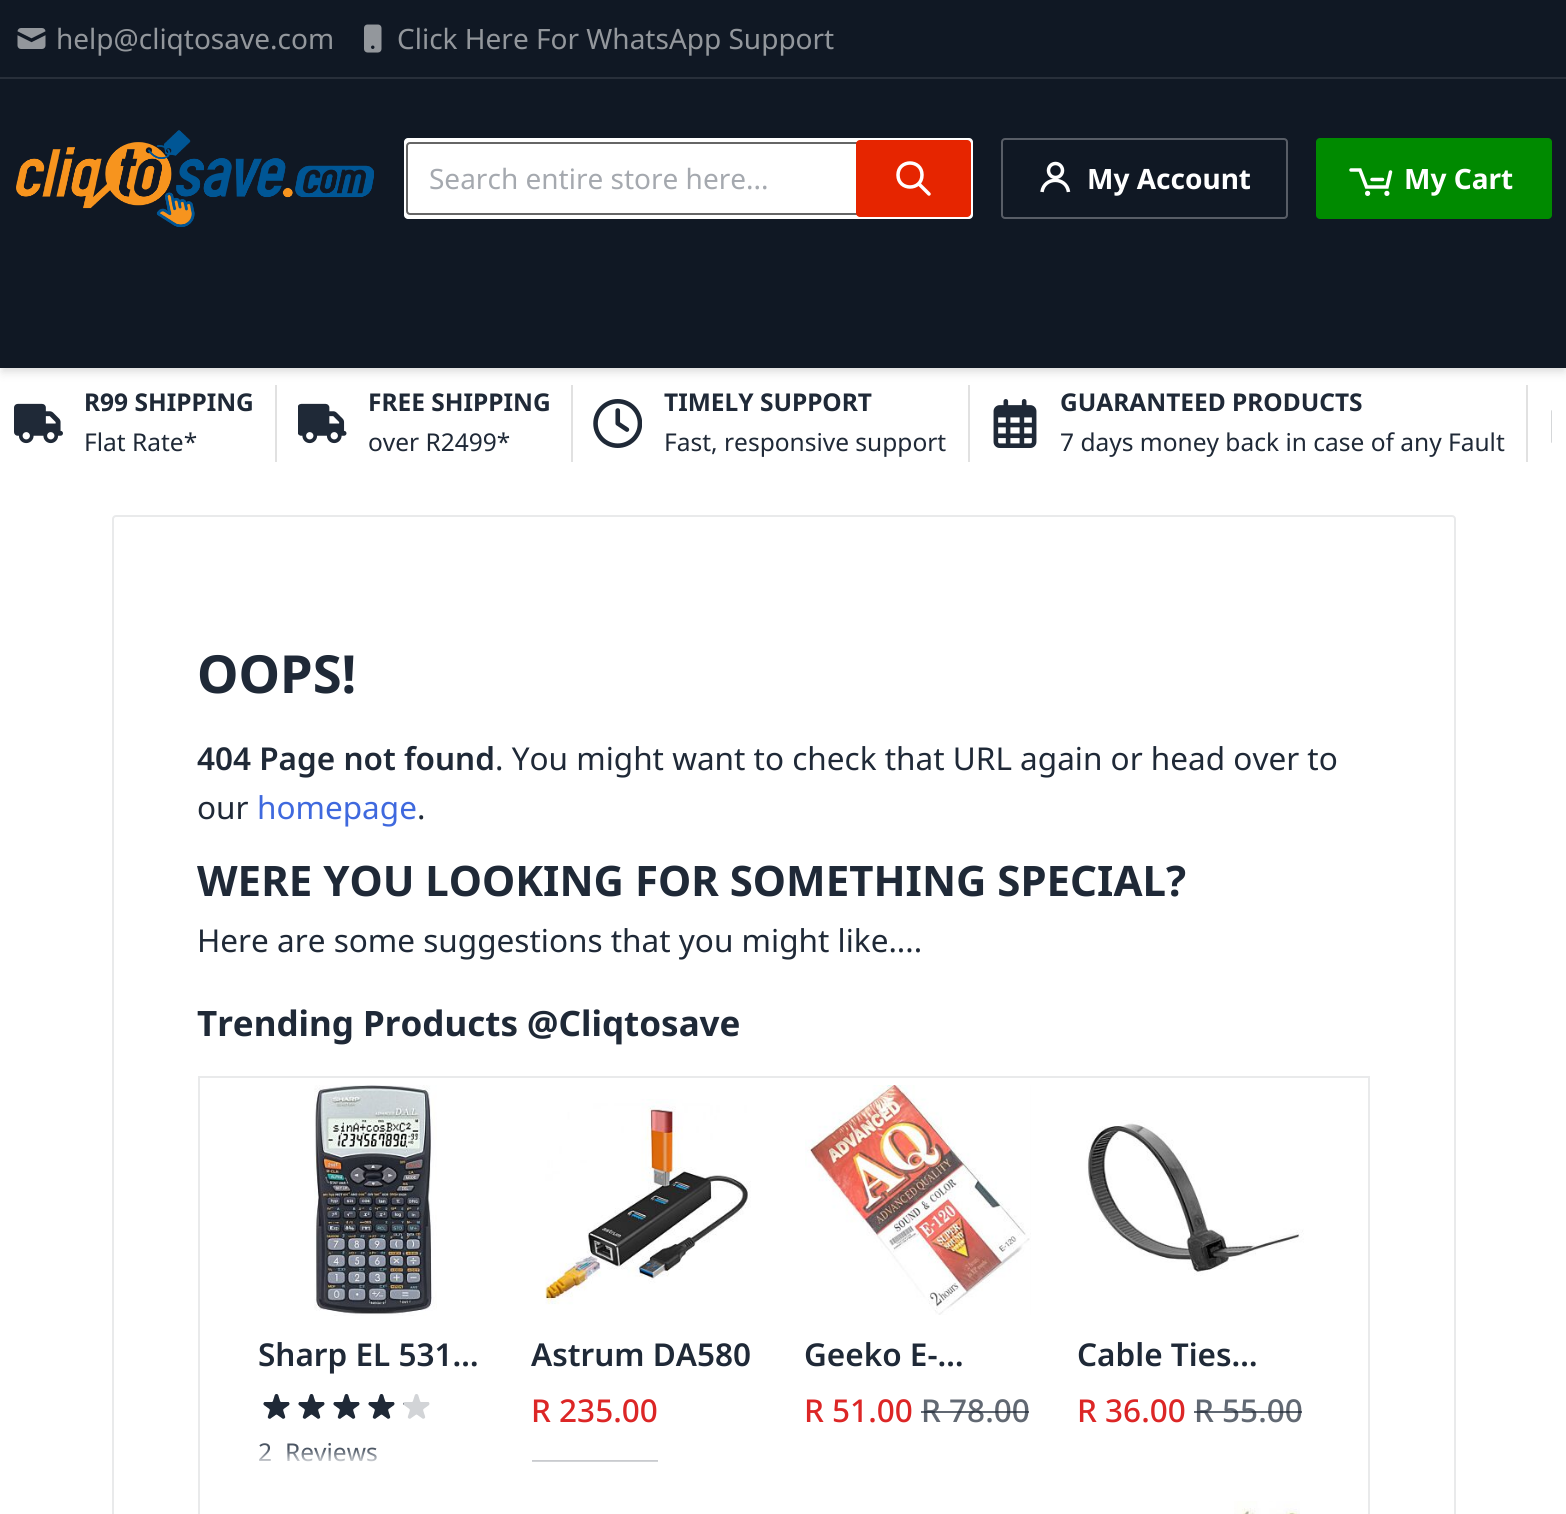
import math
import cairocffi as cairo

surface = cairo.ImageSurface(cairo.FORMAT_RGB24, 1566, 1514)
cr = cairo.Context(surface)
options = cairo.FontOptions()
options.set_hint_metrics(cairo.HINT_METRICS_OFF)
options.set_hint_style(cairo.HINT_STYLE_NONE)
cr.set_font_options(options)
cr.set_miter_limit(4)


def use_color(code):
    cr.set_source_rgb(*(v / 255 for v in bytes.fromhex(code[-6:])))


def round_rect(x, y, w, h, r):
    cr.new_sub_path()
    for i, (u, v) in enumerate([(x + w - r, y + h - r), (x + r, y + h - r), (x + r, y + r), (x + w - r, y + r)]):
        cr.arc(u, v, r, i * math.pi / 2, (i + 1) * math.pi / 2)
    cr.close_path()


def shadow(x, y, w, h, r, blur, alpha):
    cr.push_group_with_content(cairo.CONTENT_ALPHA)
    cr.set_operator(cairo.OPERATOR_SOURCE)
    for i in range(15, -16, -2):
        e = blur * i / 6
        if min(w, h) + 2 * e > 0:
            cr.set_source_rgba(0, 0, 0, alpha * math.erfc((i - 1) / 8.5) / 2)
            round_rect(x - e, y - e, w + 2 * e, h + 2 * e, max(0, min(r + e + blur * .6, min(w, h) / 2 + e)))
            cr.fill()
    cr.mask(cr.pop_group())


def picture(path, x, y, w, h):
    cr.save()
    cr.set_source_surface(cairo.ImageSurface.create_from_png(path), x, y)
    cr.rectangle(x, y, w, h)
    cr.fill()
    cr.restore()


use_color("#ffffff")
cr.paint()
use_color("#000000")
shadow(2, 5, 1563, 364, 0, 3.5, 0.06)
use_color("#e1e1e1")
cr.rectangle(275, 385, 2, 77)
cr.fill()
cr.rectangle(571, 385, 2, 77)
cr.fill()
cr.rectangle(968, 385, 2, 77)
cr.fill()
cr.rectangle(1526, 385, 2, 77)
cr.fill()
use_color("#000000")
shadow(2, 9, 1563, 364, 0, 5, 0.1)
use_color("#101824")
cr.rectangle(0, 0, 1566, 368)
cr.fill()
use_color("#282f3a")
cr.rectangle(0, 77, 1566, 2)
cr.fill()
picture("img1.png", 17, 28, 29, 21)
cr.select_font_face("Noto Sans")
cr.set_font_size(28)
use_color("#93979c")
cr.move_to(56, 49)
cr.show_text("help@cliqtosave.com")
picture("img2.png", 364, 24, 18, 29)
cr.move_to(397, 49)
cr.show_text("Click Here For WhatsApp Support")
picture("img3.png", 16, 130, 358, 97)
use_color("#ffffff")
round_rect(404, 138, 569, 81, 4)
cr.fill()
round_rect(407, 143, 563, 71, 3)
use_color("#666666")
cr.stroke()
use_color("#a5a9af")
cr.move_to(429, 189)
cr.show_text("Search entire store here...")
use_color("#e62500")
round_rect(856, 140, 115, 77, 4)
cr.fill()
cr.new_path()
cr.move_to(929, 194)
cr.line_to(919, 184)
cr.move_to(922, 175)
cr.curve_to(922, 191, 898, 191, 898, 175)
cr.curve_to(898, 159, 922, 159, 922, 175)
cr.close_path()
use_color("#ffffff")
cr.set_line_width(3.5)
cr.set_line_cap(cairo.LINE_CAP_ROUND)
cr.set_line_join(cairo.LINE_JOIN_ROUND)
cr.stroke()
round_rect(1002, 139, 285, 79, 3)
use_color("#585d66")
cr.set_line_width(2)
cr.set_line_cap(cairo.LINE_CAP_BUTT)
cr.set_line_join(cairo.LINE_JOIN_MITER)
cr.stroke()
cr.arc(1055.5, 170.5, 7, 0, 2 * math.pi)
use_color("#ffffff")
cr.set_line_width(3.5)
cr.stroke()
cr.new_path()
cr.move_to(1068.5, 192)
cr.curve_to(1066.5, 176.5, 1044, 176.5, 1042, 192)
cr.stroke()
cr.select_font_face("Noto Sans", cairo.FONT_SLANT_NORMAL, cairo.FONT_WEIGHT_BOLD)
cr.move_to(1087, 189)
cr.show_text("My Account")
use_color("#008a00")
round_rect(1316, 138, 236, 81, 4)
cr.fill()
cr.new_path()
cr.move_to(1351, 170)
cr.line_to(1360, 170)
cr.line_to(1366.5, 187)
cr.line_to(1387, 187)
cr.line_to(1390.5, 172)
cr.move_to(1372, 179.5)
cr.line_to(1382.5, 179.5)
use_color("#ffffff")
cr.set_line_cap(cairo.LINE_CAP_ROUND)
cr.stroke()
cr.arc(1367.6, 193.4, 2.6, 0, 2 * math.pi)
cr.fill()
cr.arc(1386.9, 193.4, 2.6, 0, 2 * math.pi)
cr.fill()
cr.move_to(1404, 189)
cr.show_text("My Cart")
picture("img4.png", 14, 403, 49, 41)
cr.set_font_size(24.5)
use_color("#1f2937")
cr.move_to(84, 411)
cr.show_text("R99 SHIPPING")
cr.select_font_face("Noto Sans")
cr.move_to(84, 451)
cr.show_text("Flat Rate*")
picture("img5.png", 298, 403, 49, 41)
cr.select_font_face("Noto Sans", cairo.FONT_SLANT_NORMAL, cairo.FONT_WEIGHT_BOLD)
cr.move_to(368, 411)
cr.show_text("FREE SHIPPING")
cr.select_font_face("Noto Sans")
cr.move_to(368, 451)
cr.show_text("over R2499*")
picture("img6.png", 593, 399, 49, 49)
cr.select_font_face("Noto Sans", cairo.FONT_SLANT_NORMAL, cairo.FONT_WEIGHT_BOLD)
cr.move_to(664, 411)
cr.show_text("TIMELY SUPPORT")
cr.select_font_face("Noto Sans")
cr.move_to(664, 451)
cr.show_text("Fast, responsive support")
picture("img7.png", 993, 399, 44, 49)
cr.select_font_face("Noto Sans", cairo.FONT_SLANT_NORMAL, cairo.FONT_WEIGHT_BOLD)
cr.move_to(1060, 411)
cr.show_text("GUARANTEED PRODUCTS")
cr.select_font_face("Noto Sans")
cr.move_to(1060, 451)
cr.show_text("7 days money back in case of any Fault")
picture("img8.png", 1551, 410, 1, 33)
round_rect(113, 516, 1342, 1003, 3)
use_color("#e9eaeb")
cr.set_line_width(2)
cr.set_line_cap(cairo.LINE_CAP_BUTT)
cr.stroke()
cr.select_font_face("Noto Sans", cairo.FONT_SLANT_NORMAL, cairo.FONT_WEIGHT_BOLD)
cr.set_font_size(52.5)
use_color("#1f2937")
cr.move_to(197, 693)
cr.show_text("OOPS!")
cr.select_font_face("Noto Sans SemiBold")
cr.set_font_size(31.5)
cr.move_to(197, 770)
cr.show_text("404 Page not found")
cr.select_font_face("Noto Sans")
cr.move_to(495, 770)
cr.show_text(". You might want to check that URL again or head over to")
cr.move_to(197, 819)
cr.show_text("our")
use_color("#3f69de")
cr.move_to(257, 819)
cr.show_text("homepage")
use_color("#1f2937")
cr.move_to(417, 819)
cr.show_text(".")
cr.select_font_face("Noto Sans", cairo.FONT_SLANT_NORMAL, cairo.FONT_WEIGHT_BOLD)
cr.set_font_size(42)
cr.move_to(197, 896)
cr.show_text("WERE YOU LOOKING FOR SOMETHING SPECIAL?")
cr.select_font_face("Noto Sans")
cr.set_font_size(31.5)
cr.move_to(197, 952)
cr.show_text("Here are some suggestions that you might like....")
cr.select_font_face("Noto Sans", cairo.FONT_SLANT_NORMAL, cairo.FONT_WEIGHT_BOLD)
cr.set_font_size(35)
cr.move_to(197, 1036)
cr.show_text("Trending Products @Cliqtosave")
cr.rectangle(199, 1077, 1170, 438)
use_color("#e9eaeb")
cr.stroke()
picture("img9.png", 314, 1085, 123, 231)
cr.select_font_face("Noto Sans SemiBold")
cr.set_font_size(31.5)
use_color("#1f2937")
cr.move_to(258, 1366)
cr.show_text("Sharp EL 531…")
picture("img10.png", 263, 1394, 167, 25)
picture("img11.png", 263, 1394, 141, 25)
cr.select_font_face("Noto Sans")
cr.set_font_size(24.5)
use_color("#4b5563")
cr.move_to(258, 1461)
cr.show_text("2")
cr.move_to(285, 1461)
cr.show_text("Reviews")
gradient = cairo.LinearGradient(375, 1449, 375, 1463)
gradient.add_color_stop_rgba(0, 1, 1, 1, 0)
gradient.add_color_stop_rgba(1, 1, 1, 1, 0.8)
cr.set_source(gradient)
cr.rectangle(259, 1449, 118, 13)
cr.fill()
picture("img12.png", 545, 1099, 206, 206)
cr.select_font_face("Noto Sans SemiBold")
cr.set_font_size(31.5)
use_color("#1f2937")
cr.move_to(531, 1366)
cr.show_text("Astrum DA580")
cr.select_font_face("Noto Sans Medium")
use_color("#dc2626")
cr.move_to(531, 1422)
cr.show_text("R 235.00")
cr.set_source_rgba(0.122, 0.161, 0.216, 0.7)
cr.rectangle(532, 1460, 126, 2)
cr.fill()
gradient = cairo.LinearGradient(648, 1449, 648, 1463)
gradient.add_color_stop_rgba(0, 1, 1, 1, 0)
gradient.add_color_stop_rgba(1, 1, 1, 1, 0.8)
cr.set_source(gradient)
cr.rectangle(532, 1460, 126, 2)
cr.fill()
picture("img13.png", 805, 1085, 226, 230)
cr.select_font_face("Noto Sans SemiBold")
use_color("#1f2937")
cr.move_to(804, 1366)
cr.show_text("Geeko E-…")
cr.select_font_face("Noto Sans Medium")
use_color("#dc2626")
cr.move_to(804, 1422)
cr.show_text("R 51.00")
use_color("#626973")
cr.move_to(921, 1422)
cr.show_text("R 78.00")
cr.set_source_rgba(0.122, 0.161, 0.216, 0.7)
cr.rectangle(921, 1411, 108, 2)
cr.fill()
picture("img14.png", 1086, 1120, 218, 156)
cr.select_font_face("Noto Sans SemiBold")
use_color("#1f2937")
cr.move_to(1077, 1366)
cr.show_text("Cable Ties…")
cr.select_font_face("Noto Sans Medium")
use_color("#dc2626")
cr.move_to(1077, 1422)
cr.show_text("R 36.00")
use_color("#626973")
cr.move_to(1194, 1422)
cr.show_text("R 55.00")
cr.set_source_rgba(0.122, 0.161, 0.216, 0.7)
cr.rectangle(1194, 1411, 108, 2)
cr.fill()
picture("img15.png", 1234, 1501, 66, 13)
surface.write_to_png("result.png")
